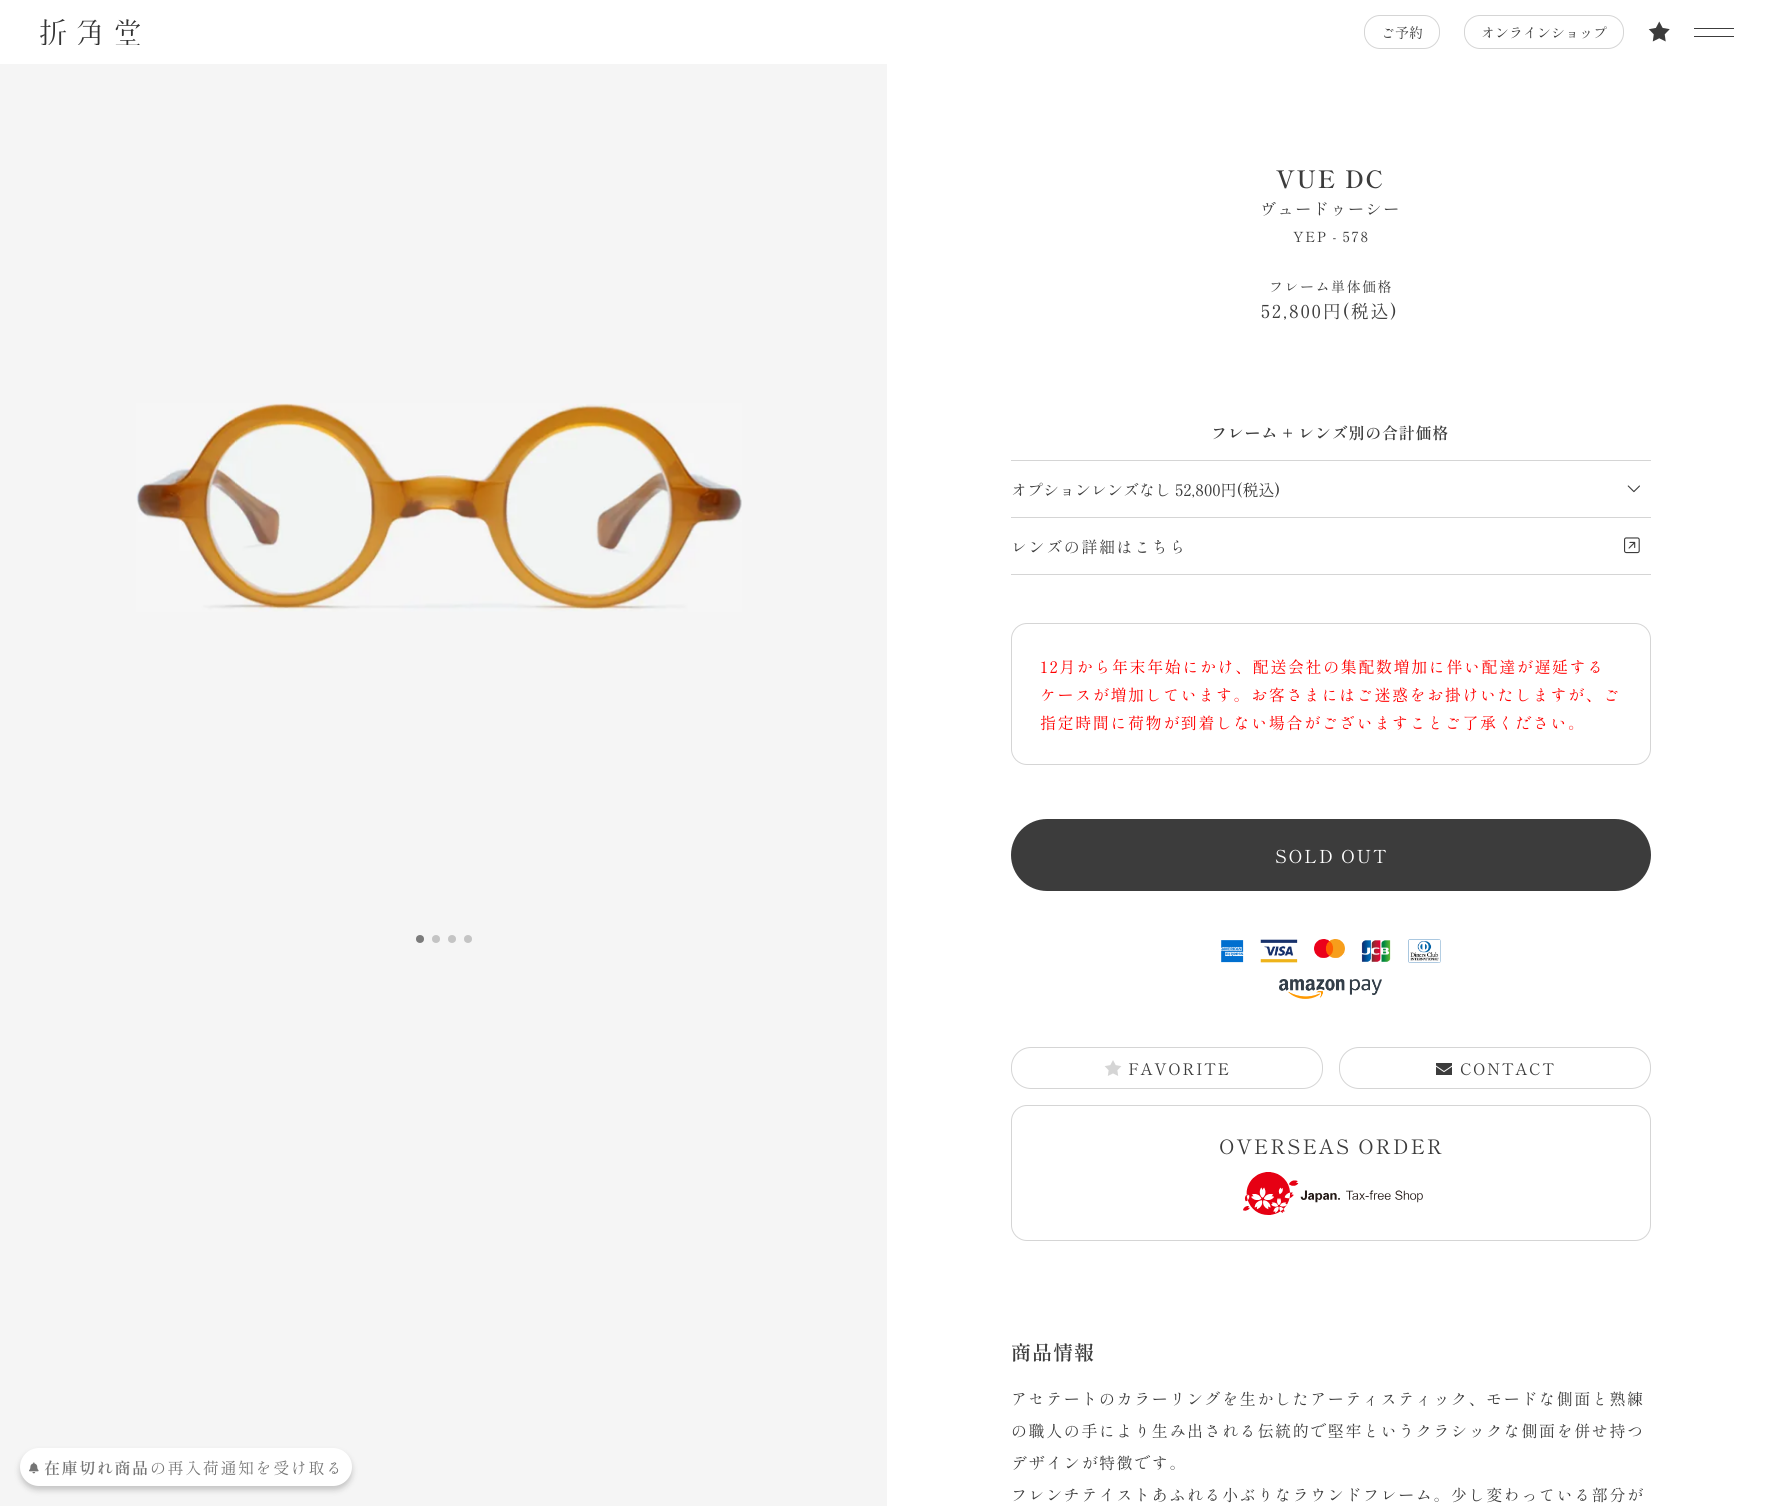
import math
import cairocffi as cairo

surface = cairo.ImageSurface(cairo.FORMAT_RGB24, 1774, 1506)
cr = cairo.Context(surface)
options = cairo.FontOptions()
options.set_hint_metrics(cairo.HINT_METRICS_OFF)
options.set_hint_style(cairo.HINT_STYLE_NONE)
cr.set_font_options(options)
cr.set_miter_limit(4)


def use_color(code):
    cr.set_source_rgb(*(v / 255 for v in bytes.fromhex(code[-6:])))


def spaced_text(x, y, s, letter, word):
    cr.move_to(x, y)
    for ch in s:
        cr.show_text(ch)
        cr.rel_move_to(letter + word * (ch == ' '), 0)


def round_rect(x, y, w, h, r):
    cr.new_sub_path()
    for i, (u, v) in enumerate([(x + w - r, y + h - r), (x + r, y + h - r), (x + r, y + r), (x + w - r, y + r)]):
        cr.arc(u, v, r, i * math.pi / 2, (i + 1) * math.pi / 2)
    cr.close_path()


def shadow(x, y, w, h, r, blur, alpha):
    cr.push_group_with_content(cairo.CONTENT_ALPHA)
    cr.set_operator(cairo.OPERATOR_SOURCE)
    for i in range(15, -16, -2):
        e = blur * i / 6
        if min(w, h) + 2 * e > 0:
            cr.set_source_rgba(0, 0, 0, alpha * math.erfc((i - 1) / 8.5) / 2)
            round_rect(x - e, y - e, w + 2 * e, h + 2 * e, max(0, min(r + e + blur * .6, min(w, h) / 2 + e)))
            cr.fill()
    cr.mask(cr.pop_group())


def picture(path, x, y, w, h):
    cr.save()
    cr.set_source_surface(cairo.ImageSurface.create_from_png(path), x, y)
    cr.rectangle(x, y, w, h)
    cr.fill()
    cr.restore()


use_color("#ffffff")
cr.paint()
use_color("#f5f5f5")
cr.rectangle(0, 64, 887, 1442)
cr.fill()
use_color("#000000")
shadow(20, 1452, 332, 38, 19, 3, 0.2)
use_color("#ffffff")
round_rect(20, 1448, 332, 38, 19)
cr.fill()
picture("img1.png", 29, 1462, 10, 12)
cr.select_font_face("Shippori Mincho SemiBold")
cr.set_font_size(16)
use_color("#757575")
spaced_text(44, 1474, "在庫切れ商品", 1.6, 0)
cr.select_font_face("Shippori Mincho")
spaced_text(150, 1474, "の再入荷通知を受け取る", 1.6, 0)
picture("img2.png", 40, 19, 100, 26)
round_rect(1364.5, 15.5, 75, 33, 15.5)
use_color("#d5d5d5")
cr.set_line_width(1)
cr.stroke()
cr.set_font_size(14)
use_color("#3c3c3c")
cr.move_to(1381, 38)
cr.show_text("ご予約")
round_rect(1464.5, 15.5, 159, 33, 15.5)
use_color("#d5d5d5")
cr.stroke()
use_color("#3c3c3c")
cr.move_to(1481, 38)
cr.show_text("オンラインショップ")
picture("img3.png", 1648, 21, 22, 21)
cr.rectangle(1694, 28, 40, 1)
cr.fill()
cr.rectangle(1694, 36, 40, 1)
cr.fill()
picture("img4.png", 136, 403, 606, 209)
use_color("#7b7b7b")
cr.arc(420, 939, 4, 0, 2 * math.pi)
cr.fill()
use_color("#c4c4c4")
cr.arc(436, 939, 4, 0, 2 * math.pi)
cr.fill()
cr.arc(452, 939, 4, 0, 2 * math.pi)
cr.fill()
cr.arc(468, 939, 4, 0, 2 * math.pi)
cr.fill()
cr.select_font_face("Shippori Mincho SemiBold")
cr.set_font_size(24)
use_color("#3c3c3c")
spaced_text(1276, 188, "VUE DC", 1.6, 0)
cr.select_font_face("Shippori Mincho")
cr.set_font_size(16)
spaced_text(1260, 215, "ヴュードゥーシー", 1.6, 0)
cr.set_font_size(14)
spaced_text(1293, 242, "YEP - 578", 1.5, 0)
spaced_text(1269, 292, "フレーム単体価格", 1.5, 0)
cr.set_font_size(18)
spaced_text(1261, 318, "52,800円(税込)", 1.75, 0)
cr.select_font_face("Shippori Mincho SemiBold")
cr.set_font_size(16)
spaced_text(1211, 439, "フレーム + レンズ別の合計価格", 0.75, 0)
use_color("#d5d5d5")
cr.rectangle(1011, 460, 640, 1)
cr.fill()
cr.rectangle(1011, 517, 640, 1)
cr.fill()
cr.select_font_face("Shippori Mincho")
use_color("#3c3c3c")
cr.move_to(1011, 496)
cr.show_text("オプションレンズなし 52,800円(税込)")
picture("img5.png", 1627, 485, 13, 8)
use_color("#d5d5d5")
cr.rectangle(1011, 574, 640, 1)
cr.fill()
use_color("#3c3c3c")
spaced_text(1011, 553, "レンズの詳細はこちら", 1.6, 0)
picture("img6.png", 1624, 537, 16, 17)
round_rect(1011.5, 623.5, 639, 141, 15.5)
use_color("#d5d5d5")
cr.stroke()
use_color("#ff0000")
spaced_text(1040, 673, "12月から年末年始にかけ、配送会社の集配数増加に伴い配達が遅延する", 1.6, 0)
spaced_text(1040, 701, "ケースが増加しています。お客さまにはご迷惑をお掛けいたしますが、ご", 1.6, 0)
spaced_text(1040, 729, "指定時間に荷物が到着しない場合がございますことご了承ください。", 1.6, 0)
use_color("#3c3c3c")
round_rect(1011, 819, 640, 72, 36)
cr.fill()
cr.set_font_size(18)
use_color("#ffffff")
spaced_text(1275, 863, "SOLD OUT", 1.75, 0)
picture("img7.png", 1221, 940, 23, 23)
picture("img8.png", 1260, 939, 38, 24)
picture("img9.png", 1314, 939, 31, 19)
picture("img10.png", 1361, 940, 30, 22)
picture("img11.png", 1408, 939, 33, 24)
picture("img12.png", 1279, 979, 103, 20)
round_rect(1011.5, 1047.5, 311, 41, 19.5)
use_color("#d5d5d5")
cr.stroke()
picture("img13.png", 1104, 1060, 18, 16)
cr.set_font_size(16)
use_color("#3c3c3c")
spaced_text(1128, 1075, "FAVORITE", 1.6, 0)
round_rect(1339.5, 1047.5, 311, 41, 19.5)
use_color("#d5d5d5")
cr.stroke()
picture("img14.png", 1436, 1063, 16, 12)
use_color("#3c3c3c")
spaced_text(1460, 1075, "CONTACT", 1.6, 0)
round_rect(1011.5, 1105.5, 639, 135, 15.5)
use_color("#d5d5d5")
cr.stroke()
cr.set_font_size(20)
use_color("#3c3c3c")
spaced_text(1219, 1154, "OVERSEAS ORDER", 2, 0)
picture("img15.png", 1243, 1172, 180, 43)
cr.select_font_face("Shippori Mincho SemiBold")
spaced_text(1011, 1360, "商品情報", 1, 0)
cr.select_font_face("Shippori Mincho")
cr.set_font_size(16)
spaced_text(1011, 1405, "アセテートのカラーリングを生かしたアーティスティック、モードな側面と熟練", 1.6, 0)
spaced_text(1011, 1437, "の職人の手により生み出される伝統的で堅牢というクラシックな側面を併せ持つ", 1.6, 0)
spaced_text(1011, 1469, "デザインが特徴です。", 1.6, 0)
spaced_text(1011, 1501, "フレンチテイストあふれる小ぶりなラウンドフレーム。少し変わっている部分が", 1.6, 0)
surface.write_to_png("result.png")
